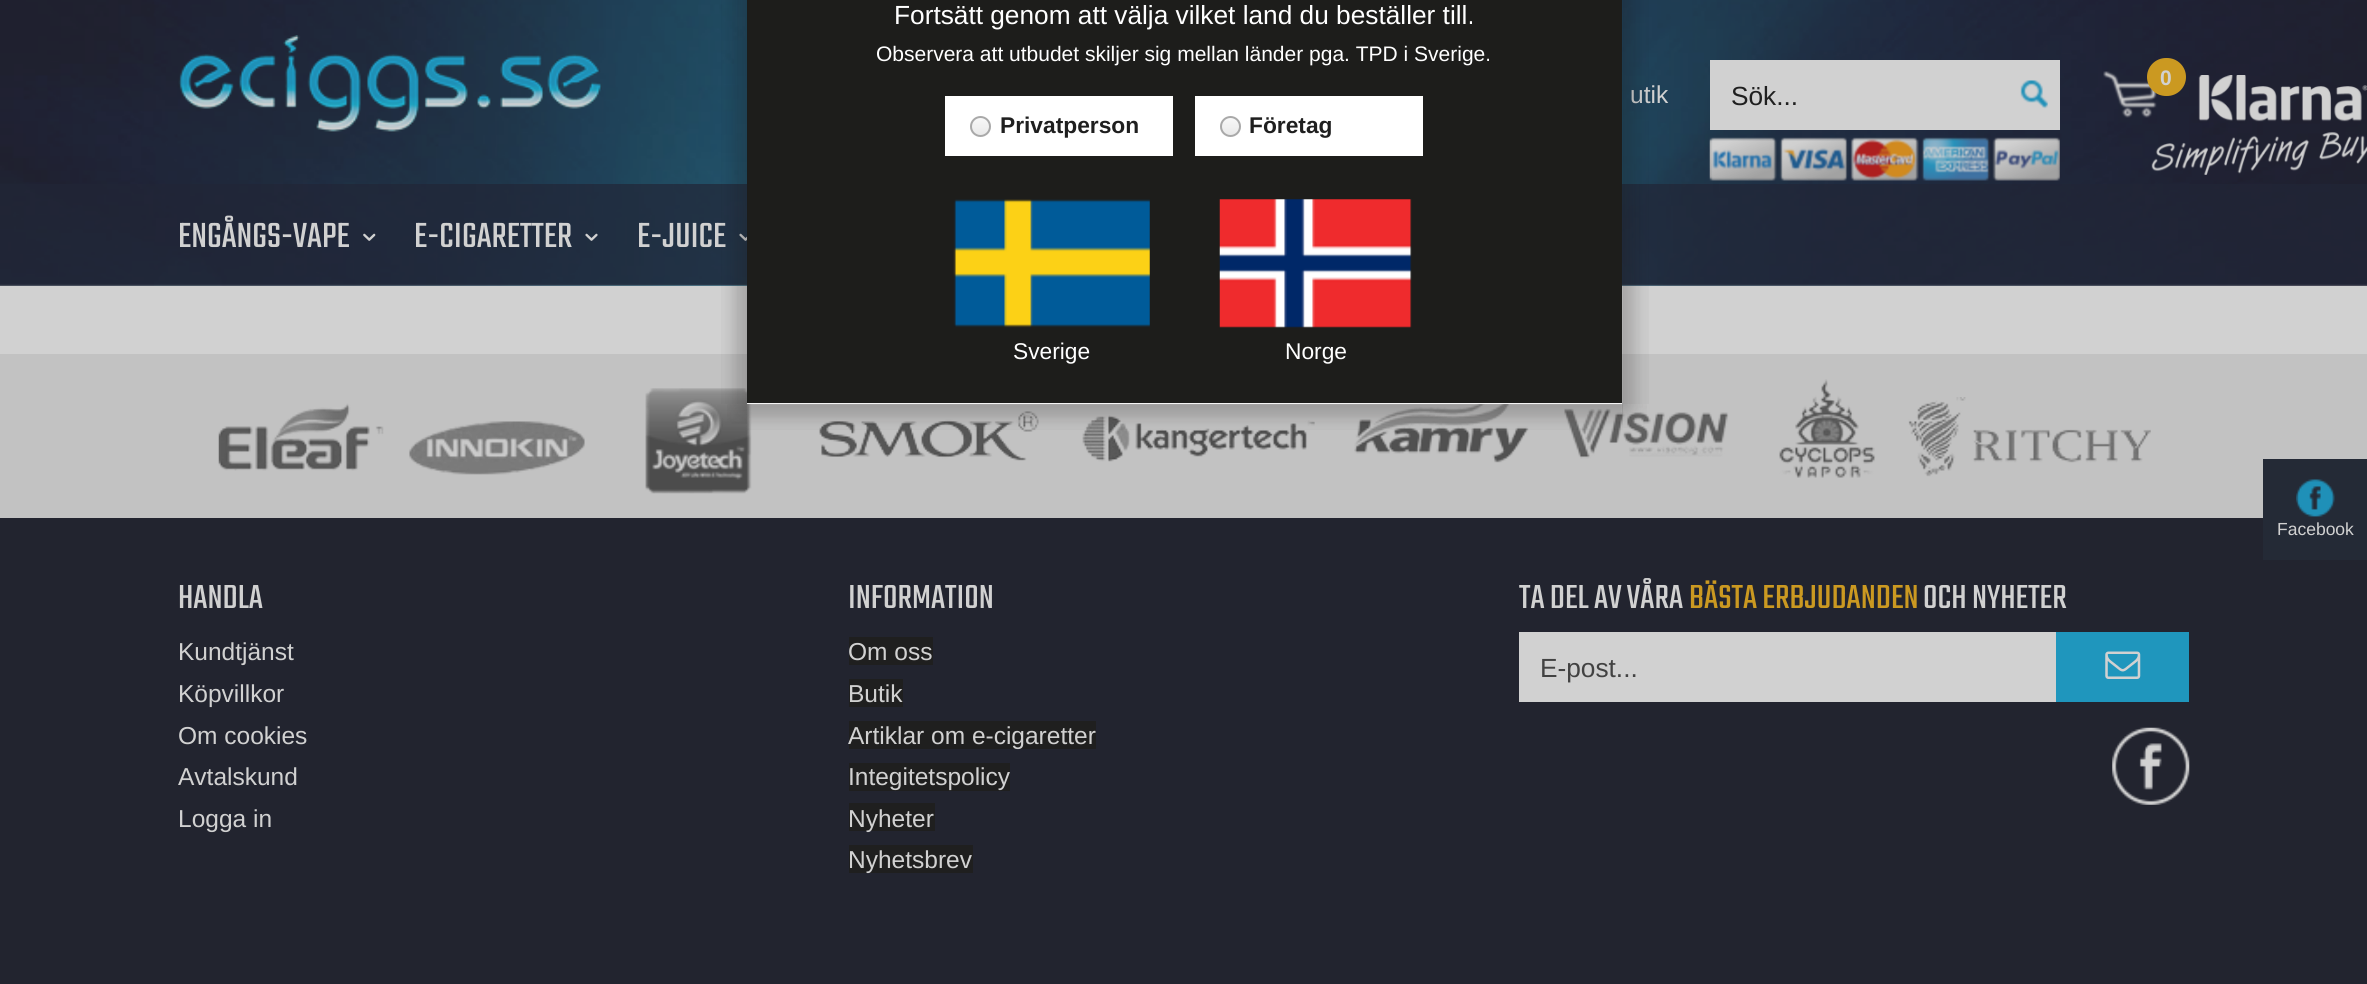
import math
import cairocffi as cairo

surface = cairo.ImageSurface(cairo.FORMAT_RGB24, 2367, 984)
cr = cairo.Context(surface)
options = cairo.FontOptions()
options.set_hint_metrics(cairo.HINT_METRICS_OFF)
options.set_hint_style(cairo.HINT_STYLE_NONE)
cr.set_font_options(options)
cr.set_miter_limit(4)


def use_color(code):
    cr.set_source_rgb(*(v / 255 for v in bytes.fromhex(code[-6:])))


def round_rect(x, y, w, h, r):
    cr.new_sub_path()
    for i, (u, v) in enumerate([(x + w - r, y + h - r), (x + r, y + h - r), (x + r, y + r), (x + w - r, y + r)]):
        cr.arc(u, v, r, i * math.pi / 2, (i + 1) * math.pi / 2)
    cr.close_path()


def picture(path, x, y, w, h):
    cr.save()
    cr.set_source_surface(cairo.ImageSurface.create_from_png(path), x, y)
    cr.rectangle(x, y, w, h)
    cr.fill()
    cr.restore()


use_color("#d1d1d1")
cr.paint()
use_color("#c2c2c2")
cr.rectangle(0, 354, 2367, 164)
cr.fill()
picture("img19.png", 645, 388, 107, 106)
use_color("#ffffff")
cr.rectangle(747, 403, 875, 1)
cr.fill()
picture("img8.png", 0, 0, 2367, 286)
cr.set_source_rgba(0.129, 0.149, 0.216, 0.7)
cr.rectangle(0, 184, 2367, 101)
cr.fill()
use_color("#1d1d1b")
cr.rectangle(747, 0, 875, 403)
cr.fill()
cr.select_font_face("Arimo")
cr.set_font_size(24.5)
use_color("#d1d1d1")
cr.move_to(1630, 103)
cr.show_text("utik")
picture("img4.png", 1622, 0, 27, 404)
picture("img23.png", 1564, 408, 165, 51)
picture("img7.png", 1622, 404, 25, 24)
picture("img20.png", 819, 411, 220, 50)
picture("img21.png", 1082, 415, 233, 47)
picture("img22.png", 1354, 404, 175, 59)
picture("img6.png", 747, 403, 876, 27)
cr.select_font_face("Teko")
cr.set_font_size(38.5)
cr.move_to(637, 247)
cr.show_text("E-JUICE")
picture("img16.png", 739, 233, 8, 8)
picture("img1.png", 721, 0, 27, 404)
cr.select_font_face("Arimo")
cr.set_font_size(26.25)
use_color("#ffffff")
cr.move_to(894, 24)
cr.show_text("Fortsätt genom att välja vilket land du beställer till.")
cr.set_font_size(21)
cr.move_to(876, 61)
cr.show_text("Observera att utbudet skiljer sig mellan länder pga. TPD i Sverige.")
cr.rectangle(945, 96, 228, 60)
cr.fill()
cr.save()
round_rect(970, 116, 21, 21, 10.5)
cr.clip()
gradient = cairo.LinearGradient(980, 117, 980, 135)
gradient.add_color_stop_rgba(0, 0.976, 0.976, 0.976, 1)
gradient.add_color_stop_rgba(1, 0.914, 0.914, 0.914, 1)
cr.set_source(gradient)
cr.rectangle(970, 117, 21, 18)
cr.fill()
cr.restore()
cr.arc(980.5, 126.5, 9.5, 0, 2 * math.pi)
use_color("#a9a9a9")
cr.stroke()
cr.select_font_face("Arimo", cairo.FONT_SLANT_NORMAL, cairo.FONT_WEIGHT_BOLD)
cr.set_font_size(22.75)
use_color("#1f1f1f")
cr.move_to(1000, 133)
cr.show_text("Privatperson")
use_color("#ffffff")
cr.rectangle(1195, 96, 228, 60)
cr.fill()
cr.save()
round_rect(1220, 116, 21, 21, 10.5)
cr.clip()
gradient = cairo.LinearGradient(1230, 117, 1230, 135)
gradient.add_color_stop_rgba(0, 0.976, 0.976, 0.976, 1)
gradient.add_color_stop_rgba(1, 0.914, 0.914, 0.914, 1)
cr.set_source(gradient)
cr.rectangle(1220, 117, 21, 18)
cr.fill()
cr.restore()
cr.arc(1230.5, 126.5, 9.5, 0, 2 * math.pi)
use_color("#a9a9a9")
cr.stroke()
use_color("#1f1f1f")
cr.move_to(1249, 133)
cr.show_text("Företag")
picture("img2.png", 953, 199, 197, 129)
cr.select_font_face("Arimo")
use_color("#ffffff")
cr.move_to(1013, 359)
cr.show_text("Sverige")
picture("img3.png", 1219, 199, 193, 129)
cr.move_to(1285, 359)
cr.show_text("Norge")
picture("img5.png", 727, 404, 21, 20)
picture("img9.png", 178, 35, 424, 98)
picture("img11.png", 2151, 75, 216, 100)
picture("img10.png", 2103, 71, 54, 47)
use_color("#cb9921")
round_rect(2147, 58, 39, 38, 19)
cr.fill()
cr.select_font_face("Arimo", cairo.FONT_SLANT_NORMAL, cairo.FONT_WEIGHT_BOLD)
cr.set_font_size(21)
use_color("#d1d1d1")
cr.move_to(2160, 85)
cr.show_text("0")
cr.rectangle(1710, 60, 350, 70)
cr.fill()
cr.select_font_face("Arimo")
cr.set_font_size(26.25)
use_color("#1f1f1f")
cr.move_to(1731, 105)
cr.show_text("Sök...")
picture("img12.png", 2020, 80, 28, 29)
picture("img13.png", 1709, 137, 351, 44)
cr.select_font_face("Teko")
cr.set_font_size(38.5)
use_color("#d1d1d1")
cr.move_to(178, 247)
cr.show_text("ENGÅNGS-VAPE")
picture("img14.png", 363, 233, 13, 8)
cr.move_to(414, 247)
cr.show_text("E-CIGARETTER")
picture("img15.png", 585, 233, 13, 8)
picture("img17.png", 218, 403, 166, 68)
picture("img18.png", 409, 421, 176, 54)
picture("img24.png", 1779, 379, 97, 99)
picture("img25.png", 1908, 397, 243, 80)
use_color("#22242f")
cr.rectangle(0, 518, 2367, 466)
cr.fill()
use_color("#242a36")
cr.rectangle(2263, 459, 104, 101)
cr.fill()
picture("img26.png", 2296, 479, 39, 38)
cr.select_font_face("Arimo")
cr.set_font_size(17.5)
use_color("#d1d1d1")
cr.move_to(2277, 535)
cr.show_text("Facebook")
cr.select_font_face("Teko")
cr.set_font_size(36.75)
cr.move_to(178, 608)
cr.show_text("HANDLA")
cr.select_font_face("Arimo")
cr.set_font_size(24.5)
cr.move_to(178, 660)
cr.show_text("Kundtjänst")
cr.move_to(178, 702)
cr.show_text("Köpvillkor")
cr.move_to(178, 744)
cr.show_text("Om cookies")
cr.move_to(178, 785)
cr.show_text("Avtalskund")
cr.move_to(178, 827)
cr.show_text("Logga in")
cr.select_font_face("Teko")
cr.set_font_size(36.75)
cr.move_to(848, 608)
cr.show_text("INFORMATION")
use_color("#1f1f1f")
cr.rectangle(849, 637, 84, 28)
cr.fill()
cr.select_font_face("Arimo")
cr.set_font_size(24.5)
use_color("#d1d1d1")
cr.move_to(848, 660)
cr.show_text("Om oss")
use_color("#1f1f1f")
cr.rectangle(849, 679, 54, 28)
cr.fill()
use_color("#d1d1d1")
cr.move_to(848, 702)
cr.show_text("Butik")
use_color("#1f1f1f")
cr.rectangle(849, 721, 247, 28)
cr.fill()
use_color("#d1d1d1")
cr.move_to(848, 744)
cr.show_text("Artiklar om e-cigaretter")
use_color("#1f1f1f")
cr.rectangle(849, 763, 161, 28)
cr.fill()
use_color("#d1d1d1")
cr.move_to(848, 785)
cr.show_text("Integitetspolicy")
use_color("#1f1f1f")
cr.rectangle(849, 803, 86, 28)
cr.fill()
use_color("#d1d1d1")
cr.move_to(848, 827)
cr.show_text("Nyheter")
use_color("#1f1f1f")
cr.rectangle(849, 845, 124, 28)
cr.fill()
use_color("#d1d1d1")
cr.move_to(848, 868)
cr.show_text("Nyhetsbrev")
cr.select_font_face("Teko")
cr.set_font_size(36.75)
cr.move_to(1519, 608)
cr.show_text("TA DEL AV VÅRA")
use_color("#cb9921")
cr.move_to(1689, 608)
cr.show_text("BÄSTA ERBJUDANDEN")
use_color("#d1d1d1")
cr.move_to(1923, 608)
cr.show_text("OCH NYHETER")
cr.rectangle(1519, 632, 537, 70)
cr.fill()
cr.select_font_face("Arimo")
cr.set_font_size(26.25)
use_color("#424242")
cr.move_to(1540, 677)
cr.show_text("E-post...")
use_color("#1f96bd")
cr.rectangle(2056, 632, 133, 70)
cr.fill()
picture("img27.png", 2105, 651, 36, 28)
picture("img28.png", 2112, 727, 78, 78)
surface.write_to_png("result.png")
